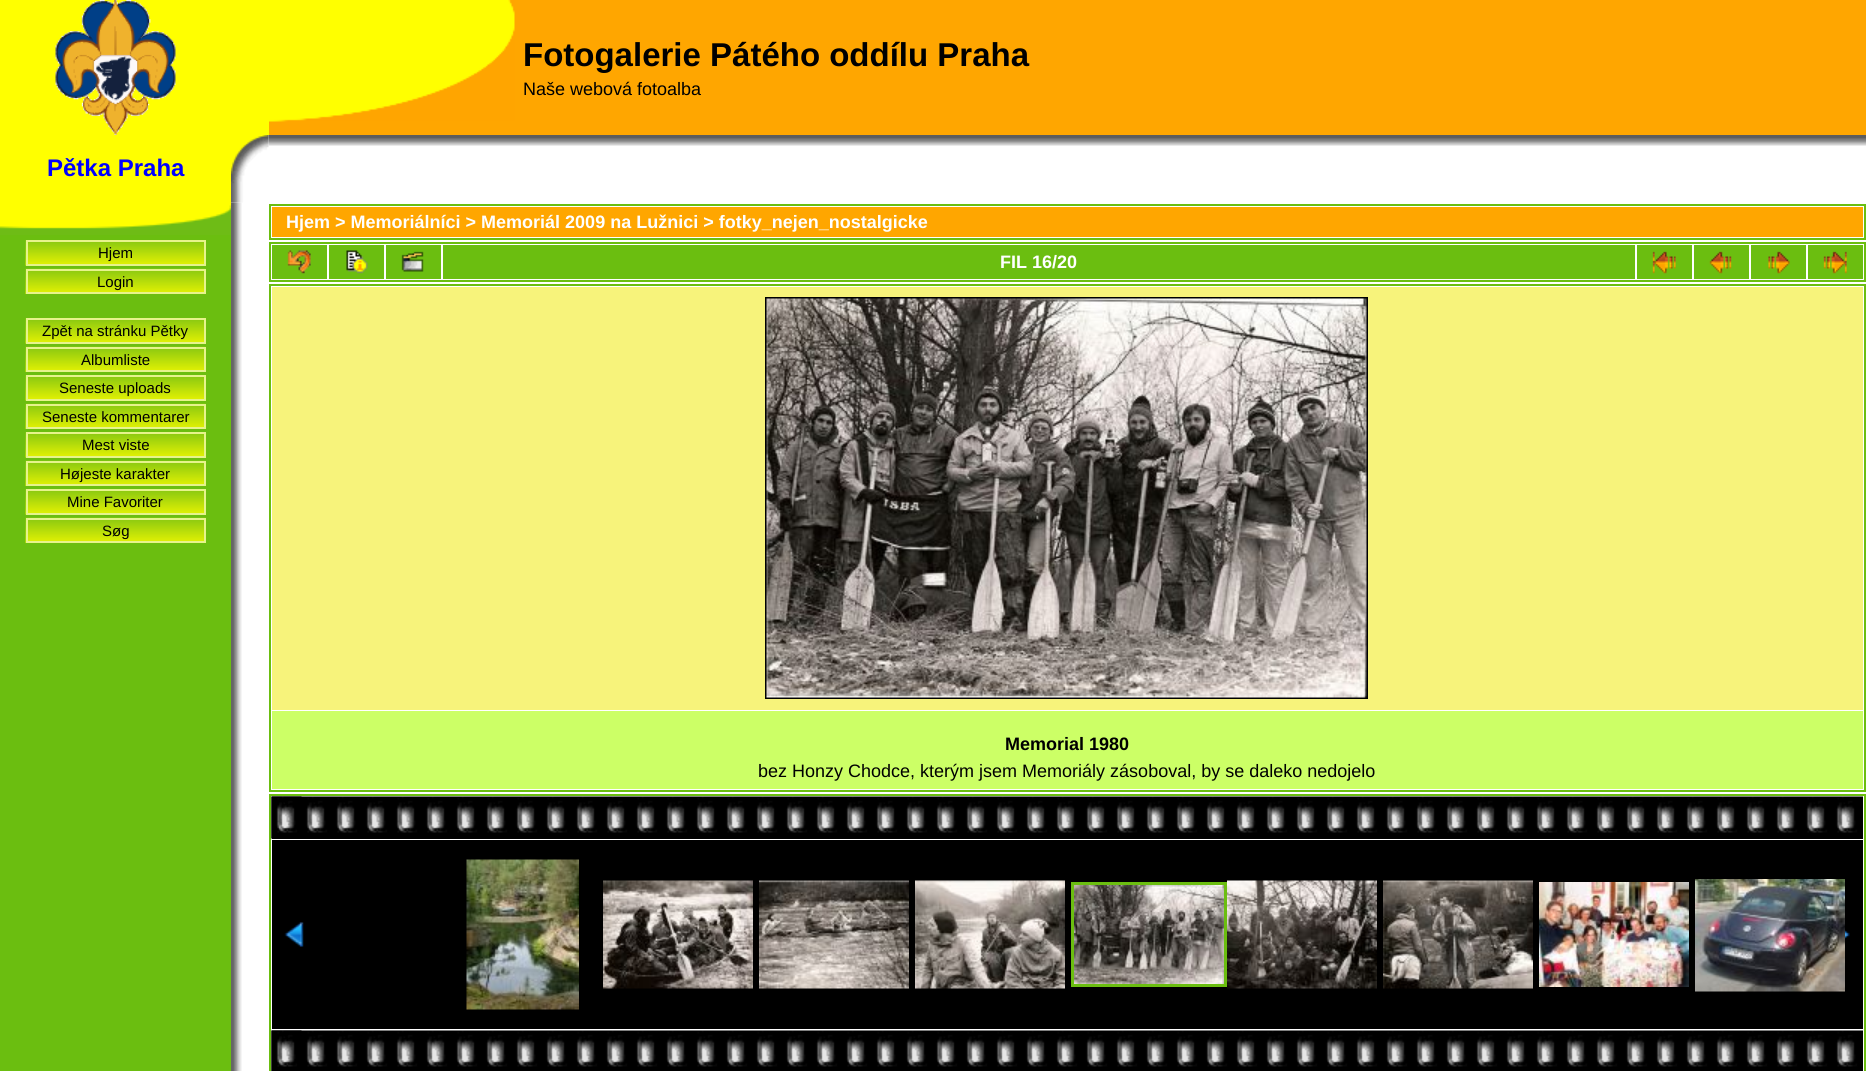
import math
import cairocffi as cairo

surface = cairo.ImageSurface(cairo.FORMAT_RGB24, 1866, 1071)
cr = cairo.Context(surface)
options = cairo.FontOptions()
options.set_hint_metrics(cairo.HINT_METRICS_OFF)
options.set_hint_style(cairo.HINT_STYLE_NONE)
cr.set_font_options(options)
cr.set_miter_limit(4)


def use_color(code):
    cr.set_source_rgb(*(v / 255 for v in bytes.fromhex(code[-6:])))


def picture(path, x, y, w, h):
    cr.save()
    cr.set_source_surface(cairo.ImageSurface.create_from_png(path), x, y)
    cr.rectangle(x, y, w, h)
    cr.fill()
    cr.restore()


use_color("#ffffff")
cr.paint()
use_color("#ffff00")
cr.rectangle(0, 0, 269, 135)
cr.fill()
picture("img1.png", 55, 0, 121, 135)
use_color("#ffa600")
cr.rectangle(269, 0, 1597, 135)
cr.fill()
picture("img2.png", 269, 0, 246, 122)
cr.select_font_face("Liberation Sans", cairo.FONT_SLANT_NORMAL, cairo.FONT_WEIGHT_BOLD)
cr.set_font_size(33)
use_color("#000000")
cr.move_to(523, 66)
cr.show_text("Fotogalerie Pátého oddílu Praha")
cr.select_font_face("Liberation Sans")
cr.set_font_size(18)
cr.move_to(523, 95)
cr.show_text("Naše webová fotoalba")
picture("img3.png", 231, 135, 38, 68)
picture("img4.png", 268, 135, 1598, 11)
use_color("#ffff00")
cr.rectangle(0, 135, 231, 68)
cr.fill()
cr.select_font_face("Liberation Sans", cairo.FONT_SLANT_NORMAL, cairo.FONT_WEIGHT_BOLD)
cr.set_font_size(24)
use_color("#0000ff")
cr.move_to(47, 176)
cr.show_text("Pětka Praha")
use_color("#6bbe10")
cr.rectangle(0, 235, 231, 836)
cr.fill()
picture("img5.png", 0, 203, 36, 32)
picture("img6.png", 36, 203, 48, 32)
picture("img7.png", 84, 203, 147, 32)
picture("img8.png", 25, 240, 179, 26)
cr.rectangle(27, 241, 178, 24)
use_color("#e7f38c")
cr.stroke()
cr.select_font_face("Liberation Sans")
cr.set_font_size(15)
use_color("#000000")
cr.move_to(98, 258)
cr.show_text("Hjem")
picture("img9.png", 25, 268, 181, 26)
cr.rectangle(27, 270, 178, 23)
use_color("#e7f38c")
cr.stroke()
use_color("#000000")
cr.move_to(97, 287)
cr.show_text("Login")
picture("img8.png", 25, 318, 179, 26)
cr.rectangle(27, 319, 178, 24)
use_color("#e7f38c")
cr.stroke()
use_color("#000000")
cr.move_to(42, 336)
cr.show_text("Zpět na stránku Pětky")
picture("img9.png", 25, 346, 181, 26)
cr.rectangle(27, 348, 178, 23)
use_color("#e7f38c")
cr.stroke()
use_color("#000000")
cr.move_to(81, 365)
cr.show_text("Albumliste")
picture("img8.png", 25, 375, 179, 26)
cr.rectangle(27, 376, 178, 24)
use_color("#e7f38c")
cr.stroke()
use_color("#000000")
cr.move_to(59, 393)
cr.show_text("Seneste uploads")
picture("img9.png", 25, 403, 181, 26)
cr.rectangle(27, 405, 178, 23)
use_color("#e7f38c")
cr.stroke()
use_color("#000000")
cr.move_to(42, 422)
cr.show_text("Seneste kommentarer")
picture("img8.png", 25, 432, 179, 26)
cr.rectangle(27, 433, 178, 24)
use_color("#e7f38c")
cr.stroke()
use_color("#000000")
cr.move_to(82, 450)
cr.show_text("Mest viste")
picture("img9.png", 25, 460, 181, 26)
cr.rectangle(27, 462, 178, 23)
use_color("#e7f38c")
cr.stroke()
use_color("#000000")
cr.move_to(60, 479)
cr.show_text("Højeste karakter")
picture("img8.png", 25, 489, 179, 26)
cr.rectangle(27, 490, 178, 24)
use_color("#e7f38c")
cr.stroke()
use_color("#000000")
cr.move_to(67, 507)
cr.show_text("Mine Favoriter")
picture("img9.png", 25, 517, 181, 26)
cr.rectangle(27, 519, 178, 23)
use_color("#e7f38c")
cr.stroke()
use_color("#000000")
cr.move_to(102, 536)
cr.show_text("Søg")
picture("img10.png", 231, 202, 11, 869)
cr.rectangle(270, 205, 1595, 34)
use_color("#6bbe10")
cr.stroke()
use_color("#ffa600")
cr.rectangle(272, 207, 1591, 30)
cr.fill()
cr.select_font_face("Liberation Sans", cairo.FONT_SLANT_NORMAL, cairo.FONT_WEIGHT_BOLD)
cr.set_font_size(18)
use_color("#ffffff")
cr.move_to(286, 228)
cr.show_text("Hjem > Memoriálníci > Memoriál 2009 na Lužnici > fotky_nejen_nostalgicke")
cr.rectangle(270, 243, 1595, 38)
use_color("#6bbe10")
cr.stroke()
cr.rectangle(272, 245, 55, 34)
cr.fill()
picture("img11.png", 287, 250, 24, 24)
cr.rectangle(329, 245, 55, 34)
cr.fill()
picture("img12.png", 346, 250, 22, 24)
cr.rectangle(386, 245, 55, 34)
cr.fill()
picture("img13.png", 401, 251, 23, 21)
cr.rectangle(443, 245, 1192, 34)
cr.fill()
use_color("#ffffff")
cr.move_to(1000, 268)
cr.show_text("FIL 16/20")
use_color("#6bbe10")
cr.rectangle(1637, 245, 55, 34)
cr.fill()
picture("img14.png", 1652, 251, 24, 23)
cr.rectangle(1694, 245, 55, 34)
cr.fill()
picture("img15.png", 1709, 251, 23, 23)
cr.rectangle(1751, 245, 55, 34)
cr.fill()
picture("img16.png", 1768, 251, 22, 23)
cr.rectangle(1808, 245, 55, 34)
cr.fill()
picture("img17.png", 1823, 251, 24, 23)
cr.rectangle(270, 285, 1595, 506)
cr.stroke()
use_color("#f7f37b")
cr.rectangle(272, 287, 1591, 423)
cr.fill()
cr.rectangle(766, 298, 601, 400)
use_color("#000000")
cr.stroke()
picture("img18.png", 766, 298, 601, 400)
use_color("#ccff66")
cr.rectangle(272, 711, 1591, 78)
cr.fill()
use_color("#000000")
cr.move_to(1005, 750)
cr.show_text("Memorial 1980")
cr.select_font_face("Liberation Sans")
cr.move_to(758, 777)
cr.show_text("bez Honzy Chodce, kterým jsem Memoriály zásoboval, by se daleko nedojelo")
cr.rectangle(270, 795, 1595, 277)
use_color("#6bbe10")
cr.stroke()
use_color("#000000")
cr.rectangle(272, 838, 1591, 1)
cr.fill()
picture("img19.png", 271, 796, 1592, 43)
picture("img20.png", 271, 796, 31, 43)
cr.rectangle(272, 840, 1591, 189)
cr.fill()
picture("img21.png", 284, 922, 20, 25)
picture("img22.png", 466, 859, 113, 151)
picture("img23.png", 603, 880, 150, 109)
picture("img24.png", 759, 880, 150, 109)
picture("img25.png", 915, 880, 150, 109)
cr.rectangle(1072.5, 883.5, 153, 102)
use_color("#6bbe10")
cr.set_line_width(3)
cr.stroke()
picture("img26.png", 1074, 885, 150, 99)
picture("img27.png", 1227, 880, 150, 109)
picture("img28.png", 1383, 880, 150, 109)
picture("img29.png", 1539, 882, 150, 105)
picture("img30.png", 1695, 879, 150, 113)
picture("img31.png", 1845, 930, 5, 9)
picture("img32.png", 271, 1030, 1592, 41)
picture("img33.png", 271, 1030, 31, 41)
surface.write_to_png("result.png")
